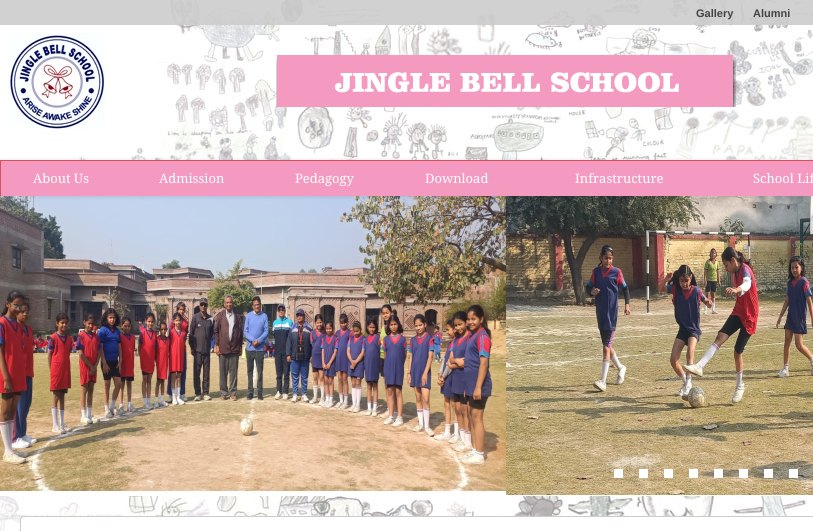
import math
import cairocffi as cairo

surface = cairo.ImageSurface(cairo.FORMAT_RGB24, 813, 531)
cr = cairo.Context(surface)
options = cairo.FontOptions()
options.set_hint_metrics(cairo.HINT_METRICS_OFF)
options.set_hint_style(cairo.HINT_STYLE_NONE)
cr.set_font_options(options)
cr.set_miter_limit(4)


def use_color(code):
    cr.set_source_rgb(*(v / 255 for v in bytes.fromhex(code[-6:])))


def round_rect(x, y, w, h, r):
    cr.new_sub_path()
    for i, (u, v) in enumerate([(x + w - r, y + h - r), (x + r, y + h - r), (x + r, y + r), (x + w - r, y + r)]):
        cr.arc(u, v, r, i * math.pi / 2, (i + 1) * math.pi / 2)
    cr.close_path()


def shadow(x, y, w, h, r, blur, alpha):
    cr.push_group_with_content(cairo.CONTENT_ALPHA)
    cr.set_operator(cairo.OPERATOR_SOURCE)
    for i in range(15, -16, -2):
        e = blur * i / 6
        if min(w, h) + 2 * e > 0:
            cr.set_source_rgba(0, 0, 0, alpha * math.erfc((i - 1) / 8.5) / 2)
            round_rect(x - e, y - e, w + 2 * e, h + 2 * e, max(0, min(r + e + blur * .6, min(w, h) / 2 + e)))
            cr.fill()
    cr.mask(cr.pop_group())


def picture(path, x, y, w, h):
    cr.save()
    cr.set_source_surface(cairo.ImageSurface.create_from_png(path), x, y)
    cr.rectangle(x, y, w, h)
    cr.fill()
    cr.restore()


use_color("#ffffff")
cr.paint()
picture("img1.png", 0, 0, 813, 531)
cr.set_source_rgba(0.8, 0.8, 0.8, 0.9)
cr.rectangle(0, 0, 813, 25)
cr.fill()
cr.select_font_face("Liberation Sans", cairo.FONT_SLANT_NORMAL, cairo.FONT_WEIGHT_BOLD)
cr.set_font_size(11)
use_color("#434343")
cr.move_to(696, 17)
cr.show_text("Gallery")
cr.move_to(753, 17)
cr.show_text("Alumni")
picture("img2.png", 8, 33, 98, 96)
picture("img3.png", 276, 55, 460, 52)
picture("img4.png", 0, 196, 813, 300)
use_color("#000000")
shadow(1, 161, 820, 35, 0, 2.5, 0.15)
use_color("#d75353")
cr.rectangle(0, 160, 813, 1)
cr.fill()
cr.rectangle(0, 160, 1, 36)
cr.fill()
use_color("#f49ac1")
cr.rectangle(1, 161, 812, 35)
cr.fill()
cr.select_font_face("Droid Serif")
cr.set_font_size(13)
use_color("#ffffff")
cr.move_to(33, 183)
cr.show_text("About Us")
cr.move_to(159, 183)
cr.show_text("Admission")
cr.move_to(295, 183)
cr.show_text("Pedagogy")
cr.move_to(425, 183)
cr.show_text("Download")
cr.move_to(575, 183)
cr.show_text("Infrastructure")
cr.move_to(753, 183)
cr.show_text("School Lif")
cr.rectangle(614, 469, 9, 9)
cr.fill()
cr.rectangle(639, 469, 9, 9)
cr.fill()
cr.rectangle(664, 469, 9, 9)
cr.fill()
cr.rectangle(689, 469, 9, 9)
cr.fill()
cr.rectangle(714, 469, 9, 9)
cr.fill()
cr.rectangle(739, 469, 9, 9)
cr.fill()
cr.rectangle(764, 469, 9, 9)
cr.fill()
cr.rectangle(789, 469, 9, 9)
cr.fill()
round_rect(20.5, 516.5, 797, 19, 3.5)
cr.fill_preserve()
use_color("#cccccc")
cr.set_line_width(1)
cr.stroke()
surface.write_to_png("result.png")
